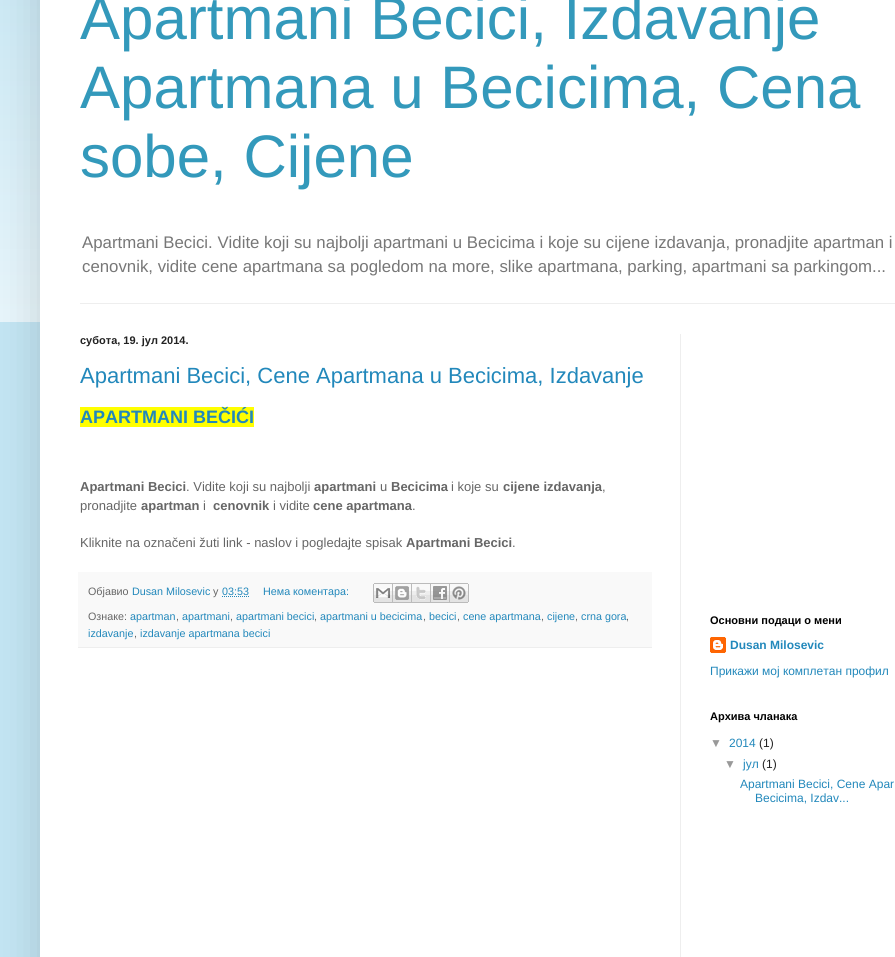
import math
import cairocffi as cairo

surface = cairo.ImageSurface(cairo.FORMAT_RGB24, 895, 957)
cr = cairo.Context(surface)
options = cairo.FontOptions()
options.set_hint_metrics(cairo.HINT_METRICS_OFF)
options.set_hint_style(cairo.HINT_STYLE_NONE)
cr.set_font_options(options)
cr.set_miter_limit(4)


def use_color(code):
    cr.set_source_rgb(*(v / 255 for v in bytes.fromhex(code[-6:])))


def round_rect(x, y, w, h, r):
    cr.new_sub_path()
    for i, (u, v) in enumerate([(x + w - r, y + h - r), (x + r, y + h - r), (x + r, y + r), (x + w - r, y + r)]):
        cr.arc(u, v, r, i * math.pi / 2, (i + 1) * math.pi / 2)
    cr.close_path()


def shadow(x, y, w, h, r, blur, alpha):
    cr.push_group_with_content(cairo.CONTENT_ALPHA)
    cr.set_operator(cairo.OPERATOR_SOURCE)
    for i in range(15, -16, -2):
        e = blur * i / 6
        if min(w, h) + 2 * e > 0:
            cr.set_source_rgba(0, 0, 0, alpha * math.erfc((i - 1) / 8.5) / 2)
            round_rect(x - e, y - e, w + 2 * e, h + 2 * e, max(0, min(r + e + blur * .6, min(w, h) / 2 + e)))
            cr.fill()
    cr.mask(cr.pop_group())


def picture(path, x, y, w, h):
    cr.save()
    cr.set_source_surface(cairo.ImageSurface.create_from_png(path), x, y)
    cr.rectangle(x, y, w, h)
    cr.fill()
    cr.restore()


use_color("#c2e4f2")
cr.paint()
picture("img1.png", 0, 0, 40, 322)
use_color("#000000")
shadow(40, -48, 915, 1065, 0, 20, 0.15)
use_color("#ffffff")
cr.rectangle(40, 0, 855, 957)
cr.fill()
cr.select_font_face("Liberation Sans")
cr.set_font_size(60)
use_color("#3399bb")
cr.move_to(80, 39)
cr.show_text("Apartmani Becici, Izdavanje")
cr.move_to(80, 108)
cr.show_text("Apartmana u Becicima, Cena")
cr.move_to(80, 177)
cr.show_text("sobe, Cijene")
cr.set_font_size(16.8)
use_color("#777777")
cr.move_to(82, 248)
cr.show_text("Apartmani Becici. Vidite koji su najbolji apartmani u Becicima i koje su cijene izdavanja, pronadjite apartman i")
cr.move_to(82, 272)
cr.show_text("cenovnik, vidite cene apartmana sa pogledom na more, slike apartmana, parking, apartmani sa parkingom...")
use_color("#eeeeee")
cr.rectangle(80, 303, 815, 1)
cr.fill()
cr.rectangle(680, 334, 1, 623)
cr.fill()
cr.select_font_face("Liberation Sans", cairo.FONT_SLANT_NORMAL, cairo.FONT_WEIGHT_BOLD)
cr.set_font_size(11)
use_color("#222222")
cr.move_to(80, 344)
cr.show_text("субота, 19. јул 2014.")
cr.select_font_face("Liberation Sans")
cr.set_font_size(22)
use_color("#2288bb")
cr.move_to(80, 383)
cr.show_text("Apartmani Becici, Cene Apartmana u Becicima, Izdavanje")
use_color("#ffff00")
cr.rectangle(80, 407, 174, 20)
cr.fill()
cr.select_font_face("Liberation Sans", cairo.FONT_SLANT_NORMAL, cairo.FONT_WEIGHT_BOLD)
cr.set_font_size(18)
use_color("#2288bb")
cr.move_to(80, 423)
cr.show_text("APARTMANI BEČIĆI")
cr.set_font_size(13)
use_color("#666666")
cr.move_to(80, 491)
cr.show_text("Apartmani Becici")
cr.select_font_face("Liberation Sans")
cr.move_to(186, 491)
cr.show_text(". Vidite koji su najbolji")
cr.select_font_face("Liberation Sans", cairo.FONT_SLANT_NORMAL, cairo.FONT_WEIGHT_BOLD)
cr.move_to(314, 491)
cr.show_text("apartmani")
cr.select_font_face("Liberation Sans")
cr.move_to(380, 491)
cr.show_text("u")
cr.select_font_face("Liberation Sans", cairo.FONT_SLANT_NORMAL, cairo.FONT_WEIGHT_BOLD)
cr.move_to(391, 491)
cr.show_text("Becicima")
cr.select_font_face("Liberation Sans")
cr.move_to(451, 491)
cr.show_text("i koje su")
cr.select_font_face("Liberation Sans", cairo.FONT_SLANT_NORMAL, cairo.FONT_WEIGHT_BOLD)
cr.move_to(503, 491)
cr.show_text("cijene izdavanja")
cr.select_font_face("Liberation Sans")
cr.move_to(602, 491)
cr.show_text(",")
cr.move_to(80, 510)
cr.show_text("pronadjite")
cr.select_font_face("Liberation Sans", cairo.FONT_SLANT_NORMAL, cairo.FONT_WEIGHT_BOLD)
cr.move_to(141, 510)
cr.show_text("apartman")
cr.select_font_face("Liberation Sans")
cr.move_to(203, 510)
cr.show_text("i")
cr.select_font_face("Liberation Sans", cairo.FONT_SLANT_NORMAL, cairo.FONT_WEIGHT_BOLD)
cr.move_to(213, 510)
cr.show_text("cenovnik")
cr.select_font_face("Liberation Sans")
cr.move_to(273, 510)
cr.show_text("i vidite")
cr.select_font_face("Liberation Sans", cairo.FONT_SLANT_NORMAL, cairo.FONT_WEIGHT_BOLD)
cr.move_to(313, 510)
cr.show_text("cene apartmana")
cr.select_font_face("Liberation Sans")
cr.move_to(412, 510)
cr.show_text(".")
use_color("#ffffff")
cr.rectangle(412, 508, 1, 5)
cr.fill()
use_color("#666666")
cr.move_to(80, 547)
cr.show_text("Kliknite na označeni žuti link - naslov i pogledajte spisak")
cr.select_font_face("Liberation Sans", cairo.FONT_SLANT_NORMAL, cairo.FONT_WEIGHT_BOLD)
cr.move_to(406, 547)
cr.show_text("Apartmani Becici")
cr.select_font_face("Liberation Sans")
cr.move_to(512, 547)
cr.show_text(".")
use_color("#f9f9f9")
cr.rectangle(78, 572, 574, 75)
cr.fill()
use_color("#eeeeee")
cr.rectangle(78, 647, 574, 1)
cr.fill()
cr.set_font_size(10.75)
use_color("#666666")
cr.move_to(88, 595)
cr.show_text("Објавио")
use_color("#2288bb")
cr.move_to(132, 595)
cr.show_text("Dusan Milosevic")
use_color("#666666")
cr.move_to(213, 595)
cr.show_text("у")
cr.new_path()
cr.move_to(222, 596.5)
cr.line_to(249, 596.5)
use_color("#2288bb")
cr.set_line_width(1)
cr.set_dash([1, 1])
cr.stroke()
cr.move_to(222, 595)
cr.show_text("03:53")
cr.move_to(263, 595)
cr.show_text("Нема коментара:")
picture("img2.png", 373, 583, 20, 20)
picture("img3.png", 393, 583, 19, 20)
picture("img4.png", 412, 583, 19, 20)
picture("img5.png", 431, 583, 19, 20)
picture("img6.png", 450, 583, 19, 20)
use_color("#666666")
cr.move_to(88, 620)
cr.show_text("Ознаке:")
use_color("#2288bb")
cr.move_to(130, 620)
cr.show_text("apartman")
use_color("#666666")
cr.move_to(176, 620)
cr.show_text(",")
use_color("#2288bb")
cr.move_to(182, 620)
cr.show_text("apartmani")
use_color("#666666")
cr.move_to(230, 620)
cr.show_text(",")
use_color("#2288bb")
cr.move_to(236, 620)
cr.show_text("apartmani becici")
use_color("#666666")
cr.move_to(314, 620)
cr.show_text(",")
use_color("#2288bb")
cr.move_to(320, 620)
cr.show_text("apartmani u becicima")
use_color("#666666")
cr.move_to(423, 620)
cr.show_text(",")
use_color("#2288bb")
cr.move_to(429, 620)
cr.show_text("becici")
use_color("#666666")
cr.move_to(457, 620)
cr.show_text(",")
use_color("#2288bb")
cr.move_to(463, 620)
cr.show_text("cene apartmana")
use_color("#666666")
cr.move_to(541, 620)
cr.show_text(",")
use_color("#2288bb")
cr.move_to(547, 620)
cr.show_text("cijene")
use_color("#666666")
cr.move_to(575, 620)
cr.show_text(",")
use_color("#2288bb")
cr.move_to(581, 620)
cr.show_text("crna gora")
use_color("#666666")
cr.move_to(626, 620)
cr.show_text(",")
use_color("#2288bb")
cr.move_to(88, 637)
cr.show_text("izdavanje")
use_color("#666666")
cr.move_to(134, 637)
cr.show_text(",")
use_color("#2288bb")
cr.move_to(140, 637)
cr.show_text("izdavanje apartmana becici")
cr.select_font_face("Liberation Sans", cairo.FONT_SLANT_NORMAL, cairo.FONT_WEIGHT_BOLD)
cr.set_font_size(11)
use_color("#000000")
cr.move_to(710, 624)
cr.show_text("Основни подаци о мени")
picture("img7.png", 710, 637, 16, 16)
cr.set_font_size(12)
use_color("#2288bb")
cr.move_to(730, 649)
cr.show_text("Dusan Milosevic")
cr.select_font_face("Liberation Sans")
cr.move_to(710, 675)
cr.show_text("Прикажи мој комплетан профил")
cr.select_font_face("Liberation Sans", cairo.FONT_SLANT_NORMAL, cairo.FONT_WEIGHT_BOLD)
cr.set_font_size(11)
use_color("#000000")
cr.move_to(710, 720)
cr.show_text("Архива чланака")
cr.select_font_face("Liberation Sans")
cr.set_font_size(12)
use_color("#999999")
cr.move_to(710, 747)
cr.show_text("▼")
use_color("#2288bb")
cr.move_to(729, 747)
cr.show_text("2014")
use_color("#222222")
cr.move_to(759, 747)
cr.show_text("(1)")
use_color("#999999")
cr.move_to(724, 768)
cr.show_text("▼")
use_color("#2288bb")
cr.move_to(743, 768)
cr.show_text("јул")
use_color("#222222")
cr.move_to(762, 768)
cr.show_text("(1)")
use_color("#2288bb")
cr.move_to(740, 788)
cr.show_text("Apartmani Becici, Cene Apar")
cr.move_to(755, 802)
cr.show_text("Becicima, Izdav...")
surface.write_to_png("result.png")
